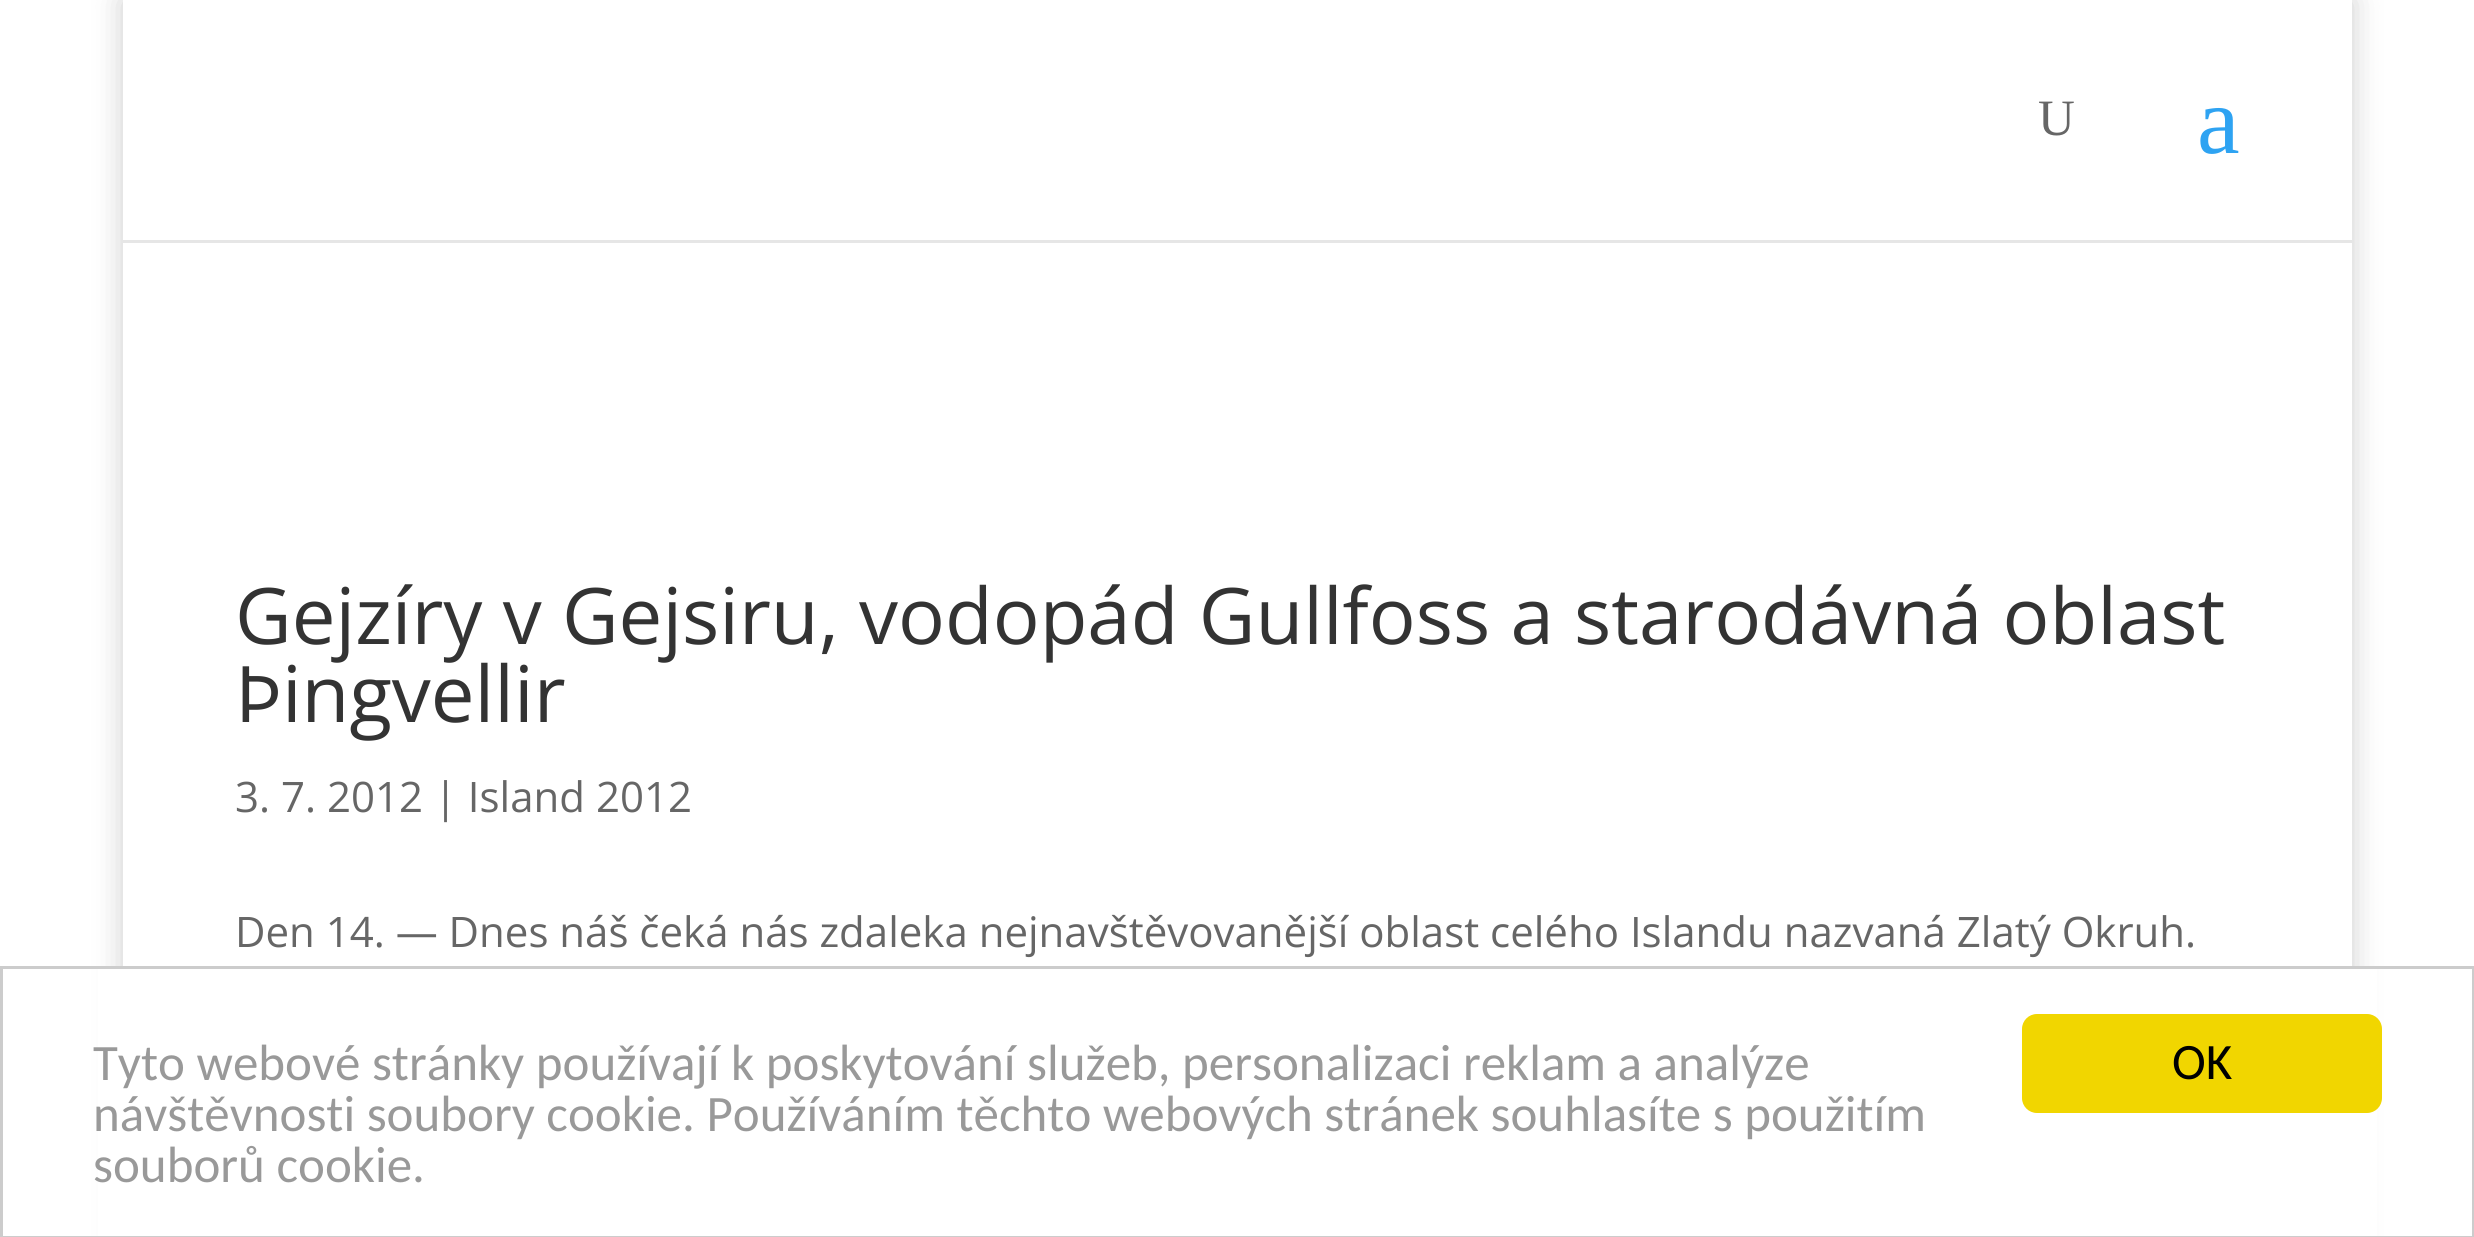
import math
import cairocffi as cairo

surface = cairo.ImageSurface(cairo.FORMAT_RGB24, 2474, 1237)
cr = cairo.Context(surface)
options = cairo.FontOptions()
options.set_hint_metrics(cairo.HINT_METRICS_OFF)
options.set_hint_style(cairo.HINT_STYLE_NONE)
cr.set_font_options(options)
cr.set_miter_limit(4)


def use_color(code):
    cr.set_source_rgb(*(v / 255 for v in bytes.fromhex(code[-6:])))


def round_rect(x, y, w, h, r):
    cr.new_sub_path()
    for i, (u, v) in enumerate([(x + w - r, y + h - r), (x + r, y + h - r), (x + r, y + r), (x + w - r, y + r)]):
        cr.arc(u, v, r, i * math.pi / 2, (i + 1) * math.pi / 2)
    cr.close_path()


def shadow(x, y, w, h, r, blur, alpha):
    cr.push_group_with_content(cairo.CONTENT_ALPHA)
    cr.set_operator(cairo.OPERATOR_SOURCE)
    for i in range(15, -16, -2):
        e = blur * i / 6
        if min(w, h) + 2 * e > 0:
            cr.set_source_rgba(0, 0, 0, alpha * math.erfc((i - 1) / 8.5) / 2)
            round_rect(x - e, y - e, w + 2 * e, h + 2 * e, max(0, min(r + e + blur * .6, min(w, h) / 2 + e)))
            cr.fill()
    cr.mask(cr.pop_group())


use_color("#ffffff")
cr.paint()
cr.save()
cr.set_fill_rule(cairo.FILL_RULE_EVEN_ODD)
cr.new_path()
cr.move_to(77, 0)
cr.line_to(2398, 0)
cr.line_to(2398, 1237)
cr.line_to(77, 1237)
cr.close_path()
cr.move_to(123, 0)
cr.line_to(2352, 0)
cr.line_to(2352, 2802)
cr.line_to(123, 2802)
cr.close_path()
cr.clip()
use_color("#000000")
shadow(123, 0, 2229, 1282, 0, 15, 0.2)
cr.restore()
use_color("#e6e6e6")
cr.rectangle(123, 240, 2229, 3)
cr.fill()
cr.select_font_face("Liberation Serif")
cr.set_font_size(51)
use_color("#666666")
cr.move_to(2038, 135)
cr.show_text("U")
cr.set_font_size(96)
use_color("#2ea3f2")
cr.move_to(2197, 153)
cr.show_text("a")
cr.select_font_face("Open Sans")
cr.set_font_size(78)
use_color("#333333")
cr.move_to(235, 644)
cr.show_text("Gejzíry v Gejsiru, vodopád Gullfoss a starodávná oblast")
cr.move_to(235, 722)
cr.show_text("Þingvellir")
cr.set_font_size(42)
use_color("#666666")
cr.move_to(235, 812)
cr.show_text("3. 7. 2012 | Island 2012")
cr.move_to(235, 947)
cr.show_text("Den 14. — Dnes náš čeká nás zdaleka nejnavštěvovanější oblast celého Islandu nazvaná Zlatý Okruh.")
use_color("#ffffff")
cr.rectangle(98, 969, 2279, 267)
cr.fill()
cr.rectangle(1.5, 967.5, 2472, 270)
use_color("#cccccc")
cr.set_line_width(3)
cr.stroke()
cr.select_font_face("Carlito")
cr.set_font_size(51)
use_color("#999999")
cr.move_to(93, 1080)
cr.show_text("Tyto webové stránky používají k poskytování služeb, personalizaci reklam a analýze")
cr.move_to(93, 1131)
cr.show_text("návštěvnosti soubory cookie. Používáním těchto webových stránek souhlasíte s použitím")
cr.move_to(93, 1182)
cr.show_text("souborů cookie.")
use_color("#f1d600")
round_rect(2022, 1014, 360, 99, 15)
cr.fill()
use_color("#000000")
cr.move_to(2172, 1079)
cr.show_text("OK")
surface.write_to_png("result.png")
